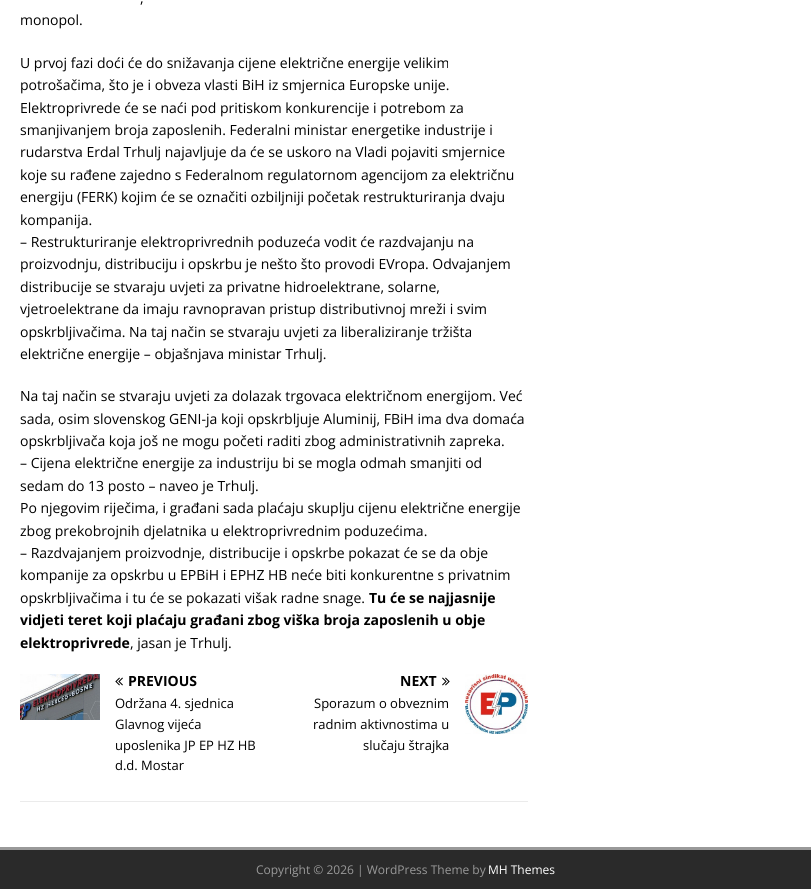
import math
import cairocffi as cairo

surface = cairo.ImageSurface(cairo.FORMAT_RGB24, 811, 889)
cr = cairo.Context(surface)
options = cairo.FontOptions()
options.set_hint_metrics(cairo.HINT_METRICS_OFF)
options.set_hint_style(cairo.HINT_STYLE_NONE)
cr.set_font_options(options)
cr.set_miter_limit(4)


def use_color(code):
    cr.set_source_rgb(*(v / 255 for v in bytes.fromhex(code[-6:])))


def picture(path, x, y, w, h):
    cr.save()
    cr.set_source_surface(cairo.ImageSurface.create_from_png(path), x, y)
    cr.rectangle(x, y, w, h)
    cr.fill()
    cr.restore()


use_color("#ffffff")
cr.paint()
cr.select_font_face("Open Sans")
cr.set_font_size(14)
use_color("#000000")
cr.move_to(140, 3)
cr.show_text(",")
cr.move_to(20, 25)
cr.show_text("monopol.")
cr.move_to(20, 68)
cr.show_text("U prvoj fazi doći će do snižavanja cijene električne energije velikim")
cr.move_to(20, 90)
cr.show_text("potrošačima, što je i obveza vlasti BiH iz smjernica Europske unije.")
cr.move_to(20, 113)
cr.show_text("Elektroprivrede će se naći pod pritiskom konkurencije i potrebom za")
cr.move_to(20, 135)
cr.show_text("smanjivanjem broja zaposlenih. Federalni ministar energetike industrije i")
cr.move_to(20, 157)
cr.show_text("rudarstva Erdal Trhulj najavljuje da će se uskoro na Vladi pojaviti smjernice")
cr.move_to(20, 180)
cr.show_text("koje su rađene zajedno s Federalnom regulatornom agencijom za električnu")
cr.move_to(20, 202)
cr.show_text("energiju (FERK) kojim će se označiti ozbiljniji početak restrukturiranja dvaju")
cr.move_to(20, 225)
cr.show_text("kompanija.")
cr.move_to(20, 247)
cr.show_text("– Restrukturiranje elektroprivrednih poduzeća vodit će razdvajanju na")
cr.move_to(20, 269)
cr.show_text("proizvodnju, distribuciju i opskrbu je nešto što provodi EVropa. Odvajanjem")
cr.move_to(20, 292)
cr.show_text("distribucije se stvaraju uvjeti za privatne hidroelektrane, solarne,")
cr.move_to(20, 314)
cr.show_text("vjetroelektrane da imaju ravnopravan pristup distributivnoj mreži i svim")
cr.move_to(20, 337)
cr.show_text("opskrbljivačima. Na taj način se stvaraju uvjeti za liberaliziranje tržišta")
cr.move_to(20, 359)
cr.show_text("električne energije – objašnjava ministar Trhulj.")
cr.move_to(20, 401)
cr.show_text("Na taj način se stvaraju uvjeti za dolazak trgovaca električnom energijom. Već")
cr.move_to(20, 424)
cr.show_text("sada, osim slovenskog GENI-ja koji opskrbljuje Aluminij, FBiH ima dva domaća")
cr.move_to(20, 446)
cr.show_text("opskrbljivača koja još ne mogu početi raditi zbog administrativnih zapreka.")
cr.move_to(20, 468)
cr.show_text("– Cijena električne energije za industriju bi se mogla odmah smanjiti od")
cr.move_to(20, 491)
cr.show_text("sedam do 13 posto – naveo je Trhulj.")
cr.move_to(20, 513)
cr.show_text("Po njegovim riječima, i građani sada plaćaju skuplju cijenu električne energije")
cr.move_to(20, 536)
cr.show_text("zbog prekobrojnih djelatnika u elektroprivrednim poduzećima.")
cr.move_to(20, 558)
cr.show_text("– Razdvajanjem proizvodnje, distribucije i opskrbe pokazat će se da obje")
cr.move_to(20, 580)
cr.show_text("kompanije za opskrbu u EPBiH i EPHZ HB neće biti konkurentne s privatnim")
cr.move_to(20, 603)
cr.show_text("opskrbljivačima i tu će se pokazati višak radne snage.")
cr.select_font_face("Open Sans", cairo.FONT_SLANT_NORMAL, cairo.FONT_WEIGHT_BOLD)
cr.move_to(369, 603)
cr.show_text("Tu će se najjasnije")
cr.move_to(20, 625)
cr.show_text("vidjeti teret koji plaćaju građani zbog viška broja zaposlenih u obje")
cr.move_to(20, 648)
cr.show_text("elektroprivrede")
cr.select_font_face("Open Sans")
cr.move_to(130, 648)
cr.show_text(", jasan je Trhulj.")
use_color("#ebebeb")
cr.rectangle(20, 801, 508, 1)
cr.fill()
picture("img1.png", 20, 674, 80, 46)
picture("img2.png", 115, 677, 8, 9)
cr.select_font_face("Open Sans", cairo.FONT_SLANT_NORMAL, cairo.FONT_WEIGHT_BOLD)
use_color("#000000")
cr.move_to(128, 686)
cr.show_text("PREVIOUS")
cr.select_font_face("Open Sans")
cr.set_font_size(13)
cr.move_to(115, 708)
cr.show_text("Održana 4. sjednica")
cr.move_to(115, 729)
cr.show_text("Glavnog vijeća")
cr.move_to(115, 750)
cr.show_text("uposlenika JP EP HZ HB")
cr.move_to(115, 770)
cr.show_text("d.d. Mostar")
cr.select_font_face("Open Sans", cairo.FONT_SLANT_NORMAL, cairo.FONT_WEIGHT_BOLD)
cr.set_font_size(14)
cr.move_to(400, 686)
cr.show_text("NEXT")
picture("img3.png", 442, 677, 8, 9)
picture("img4.png", 465, 674, 63, 60)
cr.select_font_face("Open Sans")
cr.set_font_size(13)
cr.move_to(314, 708)
cr.show_text("Sporazum o obveznim")
cr.move_to(313, 729)
cr.show_text("radnim aktivnostima u")
cr.move_to(363, 750)
cr.show_text("slučaju štrajka")
use_color("#2a2a2a")
cr.rectangle(0, 850, 811, 39)
cr.fill()
use_color("#999999")
cr.rectangle(0, 847, 811, 3)
cr.fill()
cr.set_font_size(12)
cr.move_to(256, 874)
cr.show_text("Copyright © 2026 | WordPress Theme by")
use_color("#ffffff")
cr.move_to(488, 874)
cr.show_text("MH Themes")
surface.write_to_png("result.png")
